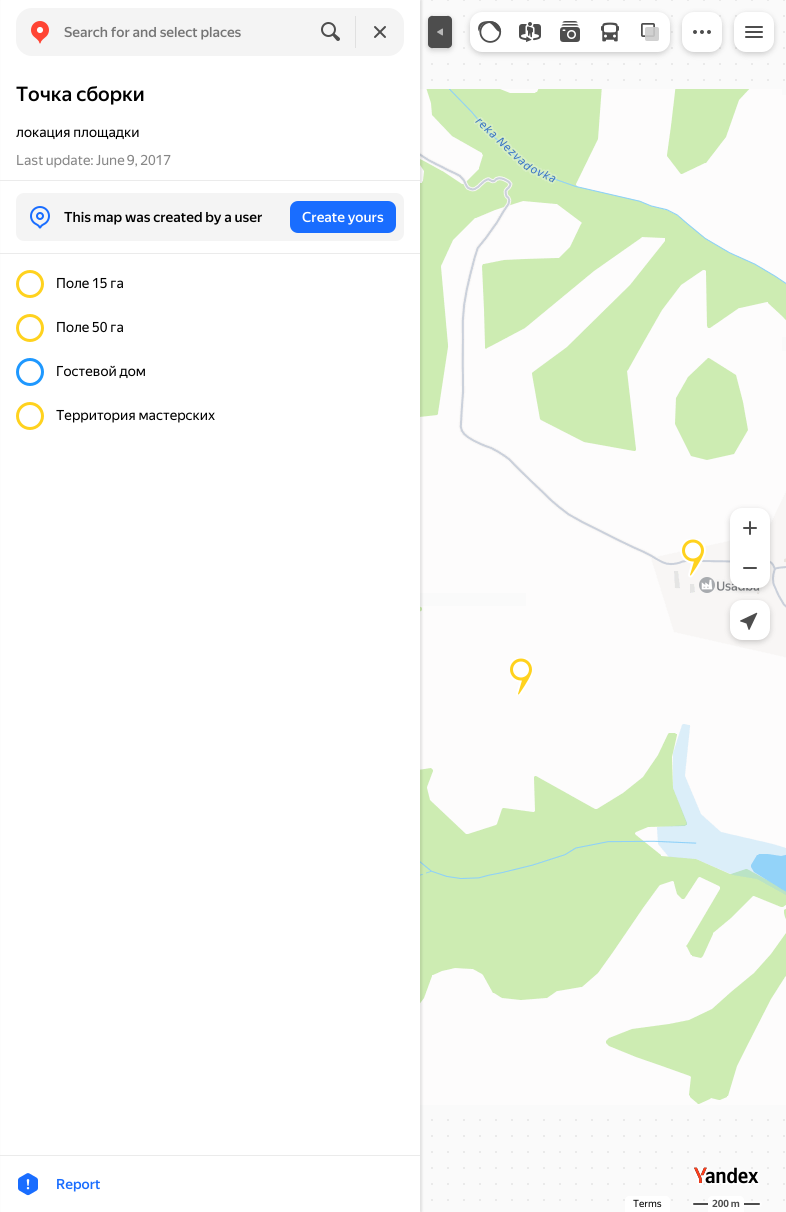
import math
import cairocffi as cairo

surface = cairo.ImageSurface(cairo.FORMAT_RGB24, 786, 1212)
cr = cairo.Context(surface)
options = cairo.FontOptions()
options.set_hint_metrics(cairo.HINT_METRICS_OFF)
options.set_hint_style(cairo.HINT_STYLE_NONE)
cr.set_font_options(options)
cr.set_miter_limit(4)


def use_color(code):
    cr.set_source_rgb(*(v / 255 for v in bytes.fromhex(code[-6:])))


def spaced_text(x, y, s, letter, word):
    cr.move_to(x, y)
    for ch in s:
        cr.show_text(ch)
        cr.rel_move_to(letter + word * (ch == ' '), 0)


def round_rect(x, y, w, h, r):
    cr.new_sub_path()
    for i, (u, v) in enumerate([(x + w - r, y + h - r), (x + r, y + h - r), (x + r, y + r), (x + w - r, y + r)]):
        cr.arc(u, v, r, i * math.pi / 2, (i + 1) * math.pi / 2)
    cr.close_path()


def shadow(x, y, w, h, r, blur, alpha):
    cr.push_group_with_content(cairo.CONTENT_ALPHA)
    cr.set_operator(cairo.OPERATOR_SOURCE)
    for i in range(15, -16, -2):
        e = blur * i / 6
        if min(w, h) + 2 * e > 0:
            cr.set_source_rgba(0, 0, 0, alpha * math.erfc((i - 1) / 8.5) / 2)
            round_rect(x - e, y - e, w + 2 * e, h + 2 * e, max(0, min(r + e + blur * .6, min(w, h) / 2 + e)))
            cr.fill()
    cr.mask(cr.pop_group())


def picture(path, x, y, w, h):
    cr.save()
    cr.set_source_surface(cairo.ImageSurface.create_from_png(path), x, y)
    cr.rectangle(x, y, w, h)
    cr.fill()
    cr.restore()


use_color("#ffffff")
cr.paint()
picture("img1.png", 420, 0, 366, 1212)
picture("img19.png", 420, 89, 106, 256)
picture("img22.png", 420, 345, 106, 248)
picture("img25.png", 420, 606, 106, 251)
picture("img28.png", 420, 857, 106, 248)
use_color("#000000")
shadow(2, 0, 420, 1212, 0, 1, 0.1)
shadow(428, 18, 24, 32, 4, 3, 0.2)
use_color("#ffffff")
cr.rectangle(1, 0, 419, 1212)
cr.fill()
use_color("#f4f4f4")
round_rect(16, 8, 388, 48, 16)
cr.fill()
picture("img2.png", 31, 21, 18, 23)
cr.select_font_face("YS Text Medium")
cr.set_font_size(14)
use_color("#757575")
cr.move_to(64, 37)
cr.show_text("Search for and select places")
picture("img3.png", 321, 22, 19, 19)
use_color("#e0e0e0")
cr.rectangle(355, 16, 1, 32)
cr.fill()
picture("img4.png", 374, 26, 12, 12)
use_color("#000000")
shadow(470, 14, 200, 40, 12, 3, 0.2)
use_color("#ffffff")
cr.new_path()
cr.move_to(482, 12)
cr.line_to(510, 12)
cr.line_to(510, 52)
cr.line_to(482, 52)
cr.curve_to(475.5, 52, 470, 46.5, 470, 40)
cr.line_to(470, 24)
cr.curve_to(470, 17.5, 475.5, 12, 482, 12)
cr.close_path()
cr.fill()
picture("img5.png", 478, 21, 24, 22)
cr.rectangle(510, 12, 120, 40)
cr.fill()
picture("img6.png", 519, 22, 22, 20)
cr.new_path()
cr.move_to(630, 12)
cr.line_to(658, 12)
cr.curve_to(664.5, 12, 670, 17.5, 670, 24)
cr.line_to(670, 40)
cr.curve_to(670, 46.5, 664.5, 52, 658, 52)
cr.line_to(630, 52)
cr.close_path()
cr.fill()
picture("img7.png", 641, 23, 18, 18)
picture("img8.png", 560, 21, 20, 21)
picture("img9.png", 601, 22, 18, 20)
use_color("#000000")
shadow(682, 14, 40, 40, 12, 3, 0.2)
use_color("#ffffff")
round_rect(682, 12, 40, 40, 12)
cr.fill()
picture("img10.png", 693, 30, 18, 4)
use_color("#000000")
shadow(734, 14, 40, 40, 12, 3, 0.2)
use_color("#ffffff")
round_rect(734, 12, 40, 40, 12)
cr.fill()
picture("img11.png", 745, 26, 18, 12)
picture("img23.png", 526, 345, 256, 256)
use_color("#000000")
shadow(730, 510, 40, 80, 12, 3, 0.2)
use_color("#ffffff")
cr.new_path()
cr.move_to(742, 508)
cr.line_to(758, 508)
cr.curve_to(764.5, 508, 770, 513.5, 770, 520)
cr.line_to(770, 548)
cr.line_to(730, 548)
cr.line_to(730, 520)
cr.curve_to(730, 513.5, 735.5, 508, 742, 508)
cr.close_path()
cr.fill()
picture("img12.png", 743, 521, 14, 14)
cr.new_path()
cr.move_to(730, 548)
cr.line_to(770, 548)
cr.line_to(770, 576)
cr.curve_to(770, 582.5, 764.5, 588, 758, 588)
cr.line_to(742, 588)
cr.curve_to(735.5, 588, 730, 582.5, 730, 576)
cr.close_path()
cr.fill()
picture("img13.png", 743, 567, 14, 2)
picture("img26.png", 526, 601, 256, 256)
use_color("#000000")
shadow(730, 602, 40, 40, 12, 3, 0.2)
use_color("#ffffff")
round_rect(730, 600, 40, 40, 12)
cr.fill()
picture("img14.png", 740, 612, 18, 18)
use_color("#4d4d4d")
round_rect(428, 16, 24, 32, 4)
cr.fill()
picture("img15.png", 437, 28, 6, 8)
cr.set_font_size(20)
use_color("#000000")
cr.move_to(16, 101)
cr.show_text("Точка сборки")
use_color("#ebebeb")
cr.rectangle(0, 180, 420, 1)
cr.fill()
cr.select_font_face("YS Text")
cr.set_font_size(14)
use_color("#000000")
cr.move_to(16, 137)
cr.show_text("локация площадки")
use_color("#878787")
spaced_text(16, 165, "Last update: June 9, 2017", 0, -0.5)
use_color("#ebebeb")
cr.rectangle(0, 253, 420, 1)
cr.fill()
use_color("#f4f4f4")
round_rect(16, 193, 388, 48, 8)
cr.fill()
picture("img16.png", 30, 206, 20, 23)
cr.select_font_face("YS Text Medium")
use_color("#000000")
cr.move_to(64, 222)
cr.show_text("This map was created by a user")
use_color("#196dff")
round_rect(290, 201, 106, 32, 8)
cr.fill()
use_color("#ffffff")
cr.move_to(302, 222)
cr.show_text("Create yours")
cr.new_path()
cr.arc(30, 284, 12.5, 0, 2 * math.pi)
use_color("#ffd21e")
cr.set_line_width(3)
cr.stroke()
cr.select_font_face("YS Text")
use_color("#000000")
cr.move_to(56, 288)
cr.show_text("Поле 15 га")
cr.new_path()
cr.arc(30, 328, 12.5, 0, 2 * math.pi)
use_color("#ffd21e")
cr.stroke()
use_color("#000000")
cr.move_to(56, 332)
cr.show_text("Поле 50 га")
cr.new_path()
cr.arc(30, 372, 12.5, 0, 2 * math.pi)
use_color("#1e98ff")
cr.stroke()
use_color("#000000")
cr.move_to(56, 376)
cr.show_text("Гостевой дом")
cr.new_path()
cr.arc(30, 416, 12.5, 0, 2 * math.pi)
use_color("#ffd21e")
cr.stroke()
use_color("#000000")
cr.move_to(56, 420)
cr.show_text("Территория мастерских")
use_color("#ebebeb")
cr.rectangle(0, 1155, 420, 1)
cr.fill()
picture("img17.png", 18, 1173, 20, 23)
cr.select_font_face("YS Text Medium")
use_color("#196dff")
cr.move_to(56, 1189)
cr.show_text("Report")
picture("img18.png", 694, 1167, 65, 18)
use_color("#ffffff")
cr.new_path()
cr.move_to(629, 1196)
cr.line_to(666, 1196)
cr.curve_to(668, 1196, 670, 1198, 670, 1200)
cr.line_to(670, 1212)
cr.line_to(625, 1212)
cr.line_to(625, 1200)
cr.curve_to(625, 1198, 627, 1196, 629, 1196)
cr.close_path()
cr.fill()
cr.select_font_face("YS Text")
cr.set_font_size(10)
use_color("#000000")
cr.move_to(633, 1207)
cr.show_text("Terms")
use_color("#fdfdfd")
round_rect(691, 1201, 71, 6, 3)
cr.fill()
use_color("#4d4d4d")
round_rect(693, 1203, 67, 2, 1)
cr.fill()
use_color("#ffffff")
cr.new_path()
cr.move_to(712, 1196)
cr.line_to(740, 1196)
cr.curve_to(742, 1196, 744, 1198, 744, 1200)
cr.line_to(744, 1212)
cr.line_to(708, 1212)
cr.line_to(708, 1200)
cr.curve_to(708, 1198, 710, 1196, 712, 1196)
cr.close_path()
cr.fill()
cr.select_font_face("YS Text", cairo.FONT_SLANT_NORMAL, cairo.FONT_WEIGHT_BOLD)
use_color("#4d4d4d")
cr.move_to(712, 1207)
cr.show_text("200 m")
picture("img20.png", 526, 89, 256, 256)
picture("img21.png", 782, 95, 4, 242)
picture("img24.png", 782, 351, 4, 250)
picture("img27.png", 782, 601, 4, 256)
picture("img29.png", 526, 857, 256, 248)
picture("img30.png", 782, 857, 4, 248)
picture("img31.png", 680, 539, 26, 39)
picture("img32.png", 510, 658, 22, 37)
surface.write_to_png("result.png")
